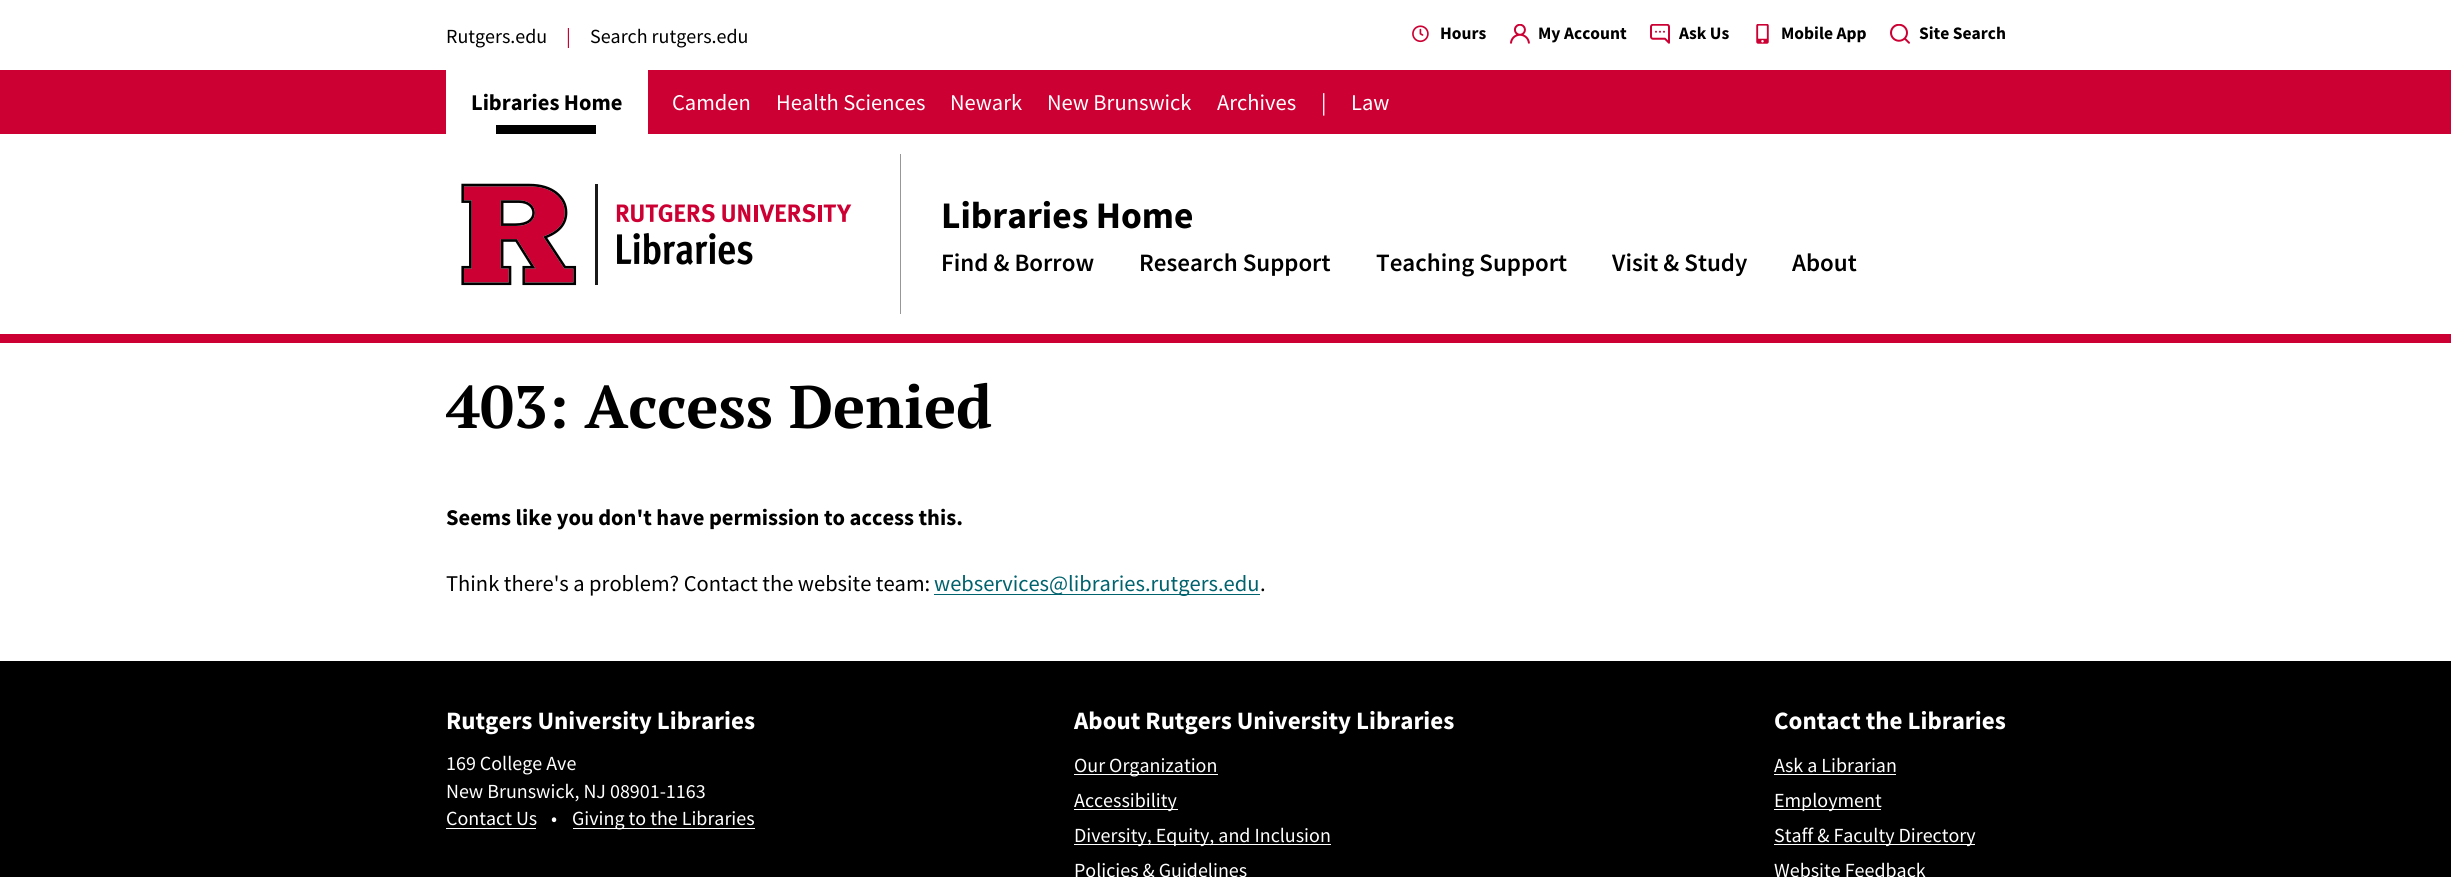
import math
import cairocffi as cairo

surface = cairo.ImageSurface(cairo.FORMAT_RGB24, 2451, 877)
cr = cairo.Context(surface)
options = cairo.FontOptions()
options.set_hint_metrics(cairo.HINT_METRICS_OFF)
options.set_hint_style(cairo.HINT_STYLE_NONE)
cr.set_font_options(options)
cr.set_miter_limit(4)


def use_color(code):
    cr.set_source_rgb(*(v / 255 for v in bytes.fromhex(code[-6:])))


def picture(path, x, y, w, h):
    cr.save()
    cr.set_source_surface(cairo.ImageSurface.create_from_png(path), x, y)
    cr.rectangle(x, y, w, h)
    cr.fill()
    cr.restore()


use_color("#ffffff")
cr.paint()
cr.select_font_face("Source Sans Pro")
cr.set_font_size(20)
use_color("#000000")
cr.move_to(446, 43)
cr.show_text("Rutgers.edu")
use_color("#cc0033")
cr.move_to(566, 43)
cr.show_text("|")
use_color("#000000")
cr.move_to(590, 43)
cr.show_text("Search rutgers.edu")
picture("img1.png", 1412, 25, 17, 18)
cr.select_font_face("Source Sans Pro", cairo.FONT_SLANT_NORMAL, cairo.FONT_WEIGHT_BOLD)
cr.set_font_size(17.5)
cr.move_to(1440, 39)
cr.show_text("Hours")
picture("img2.png", 1510, 24, 20, 20)
cr.move_to(1538, 39)
cr.show_text("My Account")
picture("img3.png", 1650, 24, 20, 20)
cr.move_to(1679, 39)
cr.show_text("Ask Us")
picture("img4.png", 1756, 24, 13, 20)
cr.move_to(1781, 39)
cr.show_text("Mobile App")
picture("img5.png", 1890, 24, 20, 20)
cr.move_to(1919, 39)
cr.show_text("Site Search")
use_color("#cc0033")
cr.rectangle(0, 70, 2451, 64)
cr.fill()
use_color("#ffffff")
cr.rectangle(446, 70, 202, 64)
cr.fill()
cr.set_font_size(22.5)
use_color("#000000")
cr.move_to(471, 110)
cr.show_text("Libraries Home")
cr.rectangle(496, 125, 100, 9)
cr.fill()
cr.select_font_face("Source Sans Pro")
use_color("#ffffff")
cr.move_to(672, 110)
cr.show_text("Camden")
cr.move_to(776, 110)
cr.show_text("Health Sciences")
cr.move_to(950, 110)
cr.show_text("Newark")
cr.move_to(1047, 110)
cr.show_text("New Brunswick")
cr.move_to(1217, 110)
cr.show_text("Archives")
cr.move_to(1321, 110)
cr.show_text("|")
cr.move_to(1351, 110)
cr.show_text("Law")
use_color("#cc0033")
cr.rectangle(0, 334, 2451, 9)
cr.fill()
picture("img6.png", 461, 183, 391, 103)
use_color("#979797")
cr.rectangle(900, 154, 1, 160)
cr.fill()
cr.select_font_face("Source Sans Pro", cairo.FONT_SLANT_NORMAL, cairo.FONT_WEIGHT_BOLD)
cr.set_font_size(37.5)
use_color("#000000")
cr.move_to(941, 228)
cr.show_text("Libraries Home")
cr.select_font_face("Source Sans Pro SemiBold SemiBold")
cr.set_font_size(25)
cr.move_to(941, 271)
cr.show_text("Find & Borrow")
cr.move_to(1139, 271)
cr.show_text("Research Support")
cr.move_to(1376, 271)
cr.show_text("Teaching Support")
cr.move_to(1612, 271)
cr.show_text("Visit & Study")
cr.move_to(1792, 271)
cr.show_text("About")
cr.select_font_face("PT Serif", cairo.FONT_SLANT_NORMAL, cairo.FONT_WEIGHT_BOLD)
cr.set_font_size(60)
cr.move_to(446, 428)
cr.show_text("403: Access Denied")
cr.select_font_face("Source Sans Pro", cairo.FONT_SLANT_NORMAL, cairo.FONT_WEIGHT_BOLD)
cr.set_font_size(22.5)
cr.move_to(446, 525)
cr.show_text("Seems like you don't have permission to access this.")
cr.select_font_face("Source Sans Pro")
cr.move_to(446, 591)
cr.show_text("Think there's a problem? Contact the website team:")
use_color("#00626d")
cr.rectangle(934, 594, 326, 1)
cr.fill()
cr.move_to(934, 591)
cr.show_text("webservices@libraries.rutgers.edu")
use_color("#000000")
cr.move_to(1260, 591)
cr.show_text(".")
cr.rectangle(0, 661, 2451, 216)
cr.fill()
cr.select_font_face("Source Sans Pro", cairo.FONT_SLANT_NORMAL, cairo.FONT_WEIGHT_BOLD)
cr.set_font_size(25)
use_color("#ffffff")
cr.move_to(446, 729)
cr.show_text("Rutgers University Libraries")
cr.select_font_face("Source Sans Pro")
cr.set_font_size(20)
cr.move_to(446, 770)
cr.show_text("169 College Ave")
cr.move_to(446, 798)
cr.show_text("New Brunswick, NJ 08901-1163")
cr.move_to(446, 825)
cr.show_text("Contact Us")
cr.rectangle(446, 828, 90, 1)
cr.fill()
cr.move_to(551, 825)
cr.show_text("•")
cr.rectangle(573, 828, 182, 1)
cr.fill()
cr.move_to(572, 825)
cr.show_text("Giving to the Libraries")
cr.select_font_face("Source Sans Pro", cairo.FONT_SLANT_NORMAL, cairo.FONT_WEIGHT_BOLD)
cr.set_font_size(25)
cr.move_to(1074, 729)
cr.show_text("About Rutgers University Libraries")
cr.rectangle(1074, 774, 144, 1)
cr.fill()
cr.select_font_face("Source Sans Pro")
cr.set_font_size(20)
cr.move_to(1074, 772)
cr.show_text("Our Organization")
cr.rectangle(1074, 809, 104, 1)
cr.fill()
cr.move_to(1074, 807)
cr.show_text("Accessibility")
cr.rectangle(1074, 844, 257, 1)
cr.fill()
cr.move_to(1074, 842)
cr.show_text("Diversity, Equity, and Inclusion")
cr.move_to(1074, 877)
cr.show_text("Policies & Guidelines")
cr.select_font_face("Source Sans Pro", cairo.FONT_SLANT_NORMAL, cairo.FONT_WEIGHT_BOLD)
cr.set_font_size(25)
cr.move_to(1774, 729)
cr.show_text("Contact the Libraries")
cr.select_font_face("Source Sans Pro")
cr.set_font_size(20)
cr.move_to(1774, 772)
cr.show_text("Ask a Librarian")
cr.rectangle(1774, 774, 122, 1)
cr.fill()
cr.rectangle(1774, 809, 107, 1)
cr.fill()
cr.move_to(1774, 807)
cr.show_text("Employment")
cr.rectangle(1774, 844, 201, 1)
cr.fill()
cr.move_to(1774, 842)
cr.show_text("Staff & Faculty Directory")
cr.move_to(1774, 877)
cr.show_text("Website Feedback")
surface.write_to_png("result.png")
